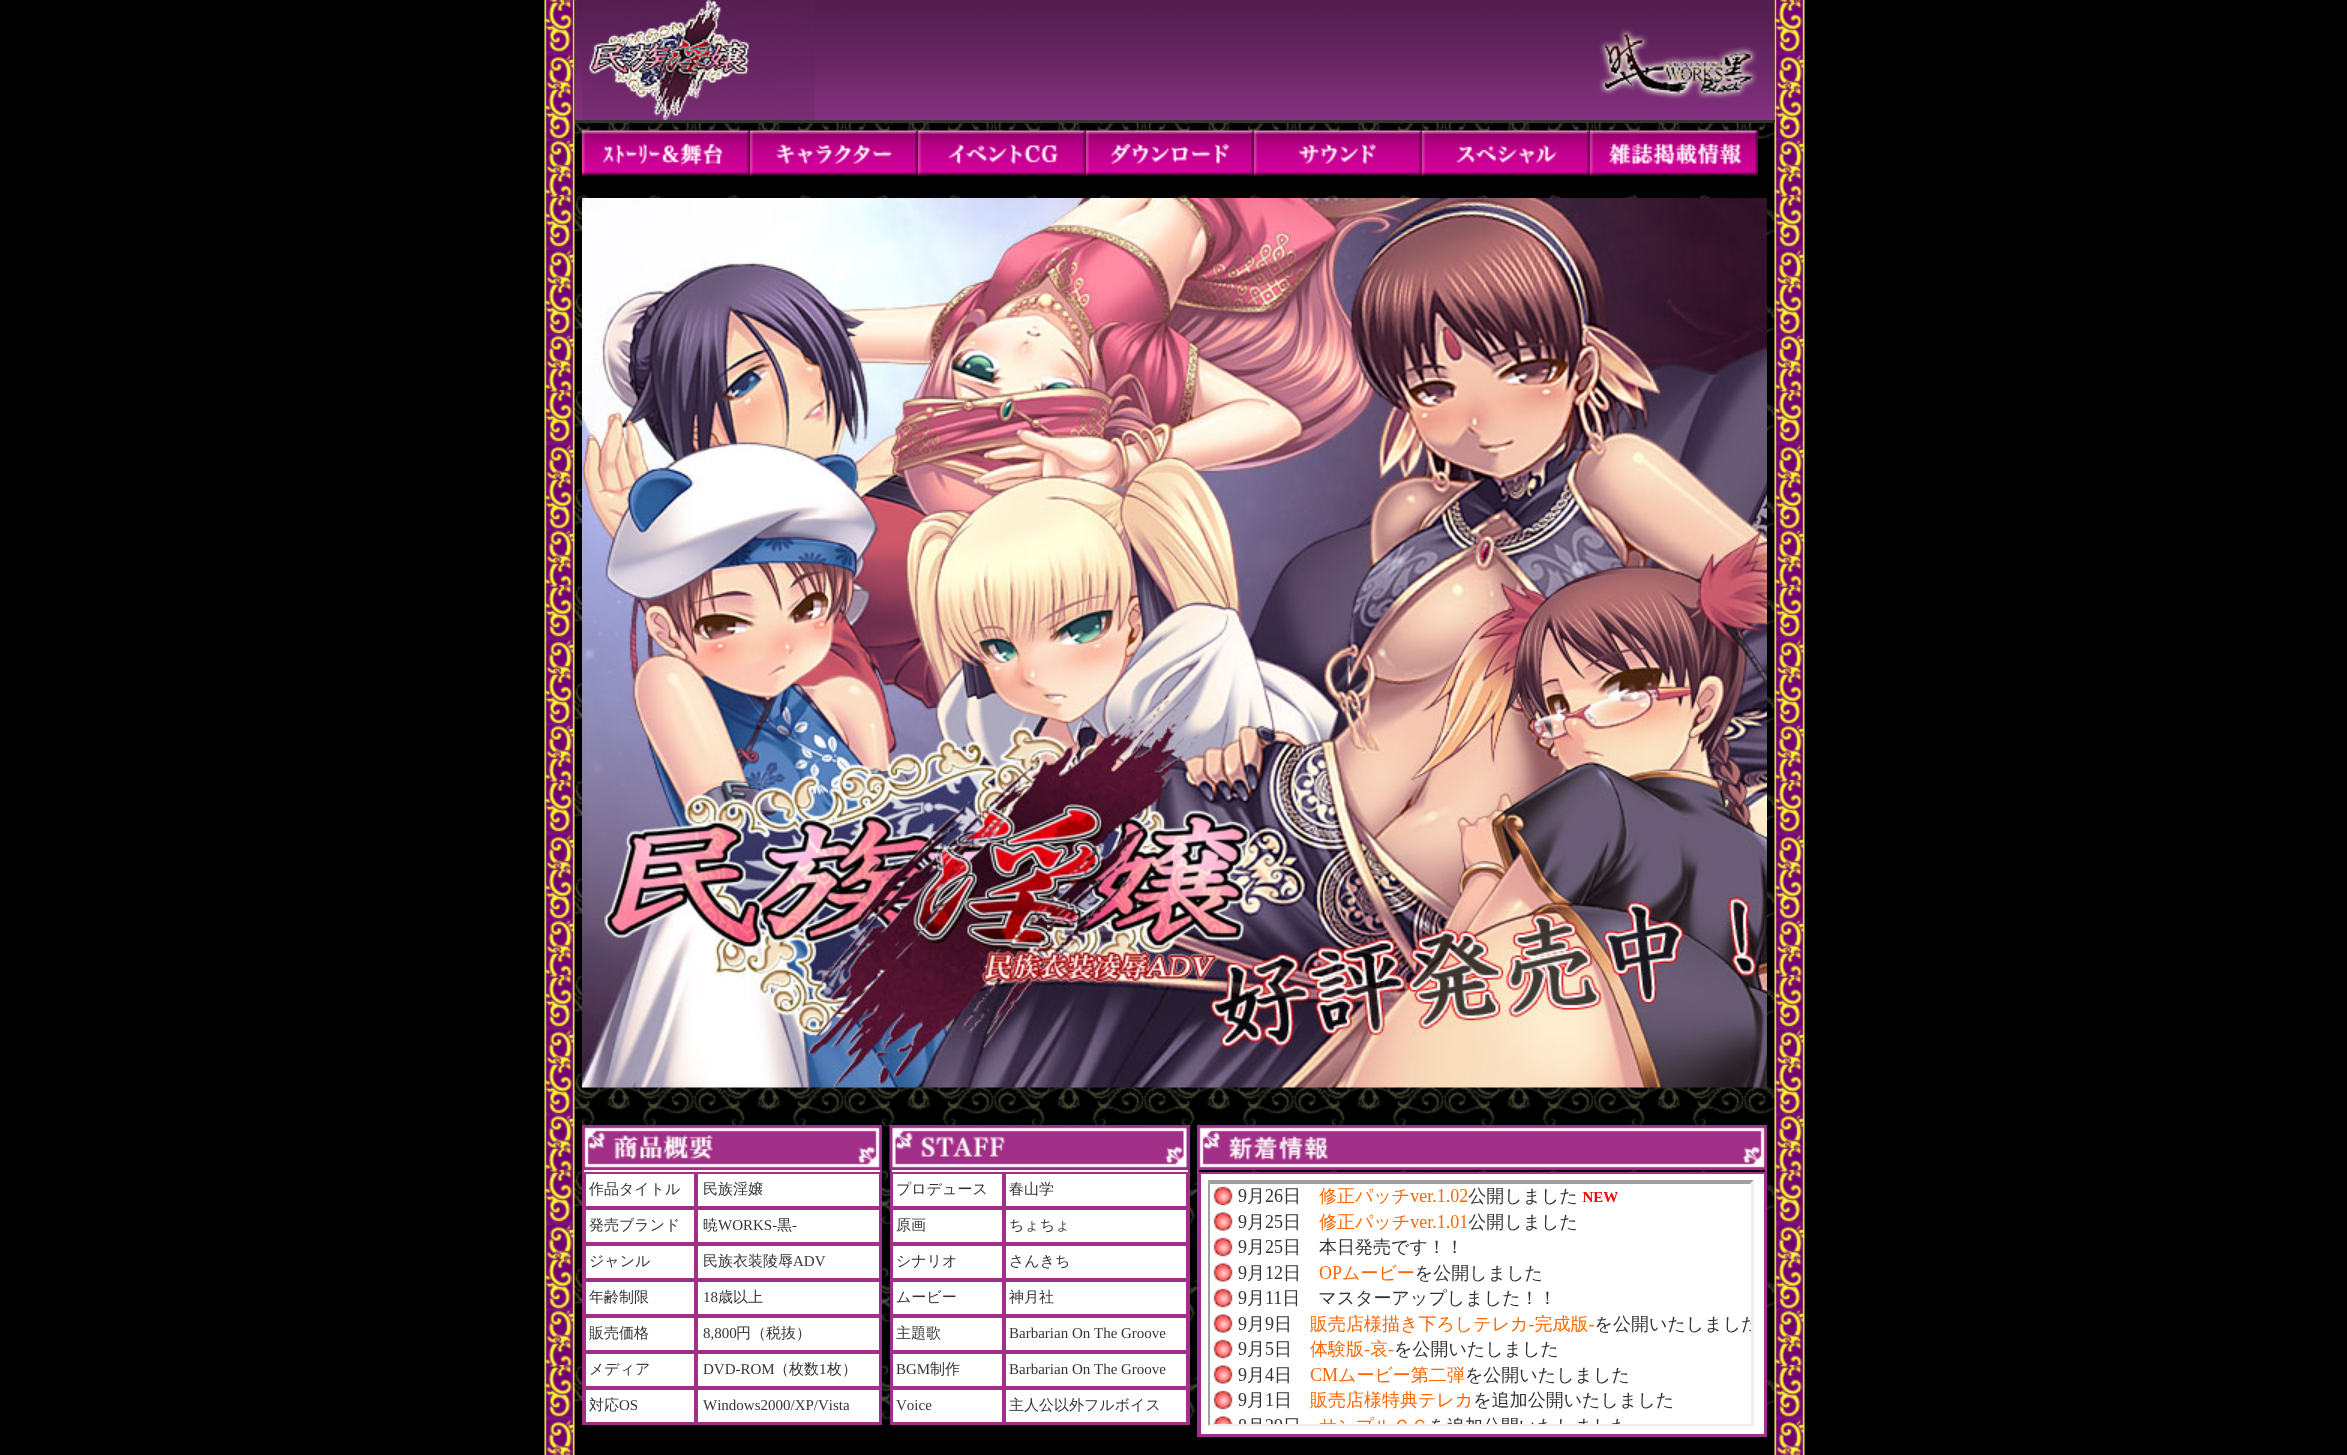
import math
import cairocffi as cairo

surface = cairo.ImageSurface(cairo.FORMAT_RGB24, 2347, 1455)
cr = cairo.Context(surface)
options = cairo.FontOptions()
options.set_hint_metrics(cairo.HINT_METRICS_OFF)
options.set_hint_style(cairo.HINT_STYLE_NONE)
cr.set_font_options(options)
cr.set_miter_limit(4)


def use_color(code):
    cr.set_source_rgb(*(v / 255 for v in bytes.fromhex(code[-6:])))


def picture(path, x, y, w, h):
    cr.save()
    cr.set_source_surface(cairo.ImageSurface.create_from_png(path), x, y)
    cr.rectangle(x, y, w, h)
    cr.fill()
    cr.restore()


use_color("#000000")
cr.paint()
picture("img1.png", 544, 0, 1261, 1455)
picture("img2.png", 574, 0, 1201, 120)
use_color("#333333")
cr.rectangle(575, 120, 1200, 3)
cr.fill()
picture("img3.png", 582, 0, 233, 120)
picture("img4.png", 1598, 28, 159, 71)
picture("img5.png", 582, 130, 168, 46)
picture("img6.png", 750, 130, 168, 46)
picture("img7.png", 918, 130, 168, 46)
picture("img8.png", 1086, 130, 168, 46)
picture("img9.png", 1254, 130, 168, 46)
picture("img10.png", 1422, 130, 168, 46)
picture("img11.png", 1590, 130, 168, 46)
picture("img12.png", 582, 198, 1185, 890)
use_color("#ffffff")
cr.rectangle(584, 1170, 296, 252)
cr.fill()
cr.rectangle(583, 1126, 298, 298)
use_color("#a13089")
cr.stroke()
picture("img13.png", 584, 1127, 296, 43)
cr.rectangle(585, 1173, 110, 34)
cr.stroke()
cr.select_font_face("WenQuanYi Zen Hei Medium")
cr.set_font_size(15)
use_color("#333333")
cr.move_to(589, 1194)
cr.show_text("作品タイトル")
cr.rectangle(697, 1173, 183, 34)
use_color("#a13089")
cr.stroke()
use_color("#333333")
cr.move_to(703, 1194)
cr.show_text("民族淫嬢")
cr.rectangle(585, 1209, 110, 34)
use_color("#a13089")
cr.stroke()
use_color("#333333")
cr.move_to(589, 1230)
cr.show_text("発売ブランド")
cr.rectangle(697, 1209, 183, 34)
use_color("#a13089")
cr.stroke()
use_color("#333333")
cr.move_to(703, 1230)
cr.show_text("暁")
cr.select_font_face("Liberation Serif")
cr.move_to(718, 1230)
cr.show_text("WORKS-")
cr.select_font_face("WenQuanYi Zen Hei Medium")
cr.move_to(777, 1230)
cr.show_text("黒")
cr.select_font_face("Liberation Serif")
cr.move_to(792, 1230)
cr.show_text("-")
cr.rectangle(585, 1245, 110, 34)
use_color("#a13089")
cr.stroke()
cr.select_font_face("WenQuanYi Zen Hei Medium")
use_color("#333333")
cr.move_to(589, 1266)
cr.show_text("ジャンル")
cr.rectangle(697, 1245, 183, 34)
use_color("#a13089")
cr.stroke()
use_color("#333333")
cr.move_to(703, 1266)
cr.show_text("民族衣装陵辱")
cr.select_font_face("Liberation Serif")
cr.move_to(793, 1266)
cr.show_text("ADV")
cr.rectangle(585, 1281, 110, 34)
use_color("#a13089")
cr.stroke()
cr.select_font_face("WenQuanYi Zen Hei Medium")
use_color("#333333")
cr.move_to(589, 1302)
cr.show_text("年齢制限")
cr.rectangle(697, 1281, 183, 34)
use_color("#a13089")
cr.stroke()
cr.select_font_face("Liberation Serif")
use_color("#333333")
cr.move_to(703, 1302)
cr.show_text("18")
cr.select_font_face("WenQuanYi Zen Hei Medium")
cr.move_to(718, 1302)
cr.show_text("歳以上")
cr.rectangle(585, 1317, 110, 34)
use_color("#a13089")
cr.stroke()
use_color("#333333")
cr.move_to(589, 1338)
cr.show_text("販売価格")
cr.rectangle(697, 1317, 183, 34)
use_color("#a13089")
cr.stroke()
cr.select_font_face("Liberation Serif")
use_color("#333333")
cr.move_to(703, 1338)
cr.show_text("8,800")
cr.select_font_face("WenQuanYi Zen Hei Medium")
cr.move_to(736, 1338)
cr.show_text("円（税抜）")
cr.rectangle(585, 1353, 110, 34)
use_color("#a13089")
cr.stroke()
use_color("#333333")
cr.move_to(589, 1374)
cr.show_text("メディア")
cr.rectangle(697, 1353, 183, 34)
use_color("#a13089")
cr.stroke()
cr.select_font_face("Liberation Serif")
use_color("#333333")
cr.move_to(703, 1374)
cr.show_text("DVD-ROM")
cr.select_font_face("WenQuanYi Zen Hei Medium")
cr.move_to(774, 1374)
cr.show_text("（枚数")
cr.select_font_face("Liberation Serif")
cr.move_to(819, 1374)
cr.show_text("1")
cr.select_font_face("WenQuanYi Zen Hei Medium")
cr.move_to(827, 1374)
cr.show_text("枚）")
cr.rectangle(585, 1389, 110, 34)
use_color("#a13089")
cr.stroke()
use_color("#333333")
cr.move_to(589, 1410)
cr.show_text("対応")
cr.select_font_face("Liberation Serif")
cr.move_to(619, 1410)
cr.show_text("OS")
cr.rectangle(697, 1389, 183, 34)
use_color("#a13089")
cr.stroke()
use_color("#333333")
cr.move_to(703, 1410)
cr.show_text("Windows2000/XP/Vista")
use_color("#ffffff")
cr.rectangle(892, 1170, 296, 252)
cr.fill()
cr.rectangle(891, 1126, 298, 298)
use_color("#a13089")
cr.stroke()
picture("img14.png", 889, 1125, 301, 45)
cr.rectangle(892, 1173, 111, 34)
cr.stroke()
cr.select_font_face("WenQuanYi Zen Hei Medium")
use_color("#333333")
cr.move_to(896, 1194)
cr.show_text("プロデュース")
cr.rectangle(1005, 1173, 182, 34)
use_color("#a13089")
cr.stroke()
use_color("#333333")
cr.move_to(1009, 1194)
cr.show_text("春山学")
cr.rectangle(892, 1209, 111, 34)
use_color("#a13089")
cr.stroke()
use_color("#333333")
cr.move_to(896, 1230)
cr.show_text("原画")
cr.rectangle(1005, 1209, 182, 34)
use_color("#a13089")
cr.stroke()
use_color("#333333")
cr.move_to(1009, 1230)
cr.show_text("ちょちょ")
cr.rectangle(892, 1245, 111, 34)
use_color("#a13089")
cr.stroke()
use_color("#333333")
cr.move_to(896, 1266)
cr.show_text("シナリオ")
cr.rectangle(1005, 1245, 182, 34)
use_color("#a13089")
cr.stroke()
use_color("#333333")
cr.move_to(1009, 1266)
cr.show_text("さんきち")
cr.rectangle(892, 1281, 111, 34)
use_color("#a13089")
cr.stroke()
use_color("#333333")
cr.move_to(896, 1302)
cr.show_text("ムービー")
cr.rectangle(1005, 1281, 182, 34)
use_color("#a13089")
cr.stroke()
use_color("#333333")
cr.move_to(1009, 1302)
cr.show_text("神月社")
cr.rectangle(892, 1317, 111, 34)
use_color("#a13089")
cr.stroke()
use_color("#333333")
cr.move_to(896, 1338)
cr.show_text("主題歌")
cr.rectangle(1005, 1317, 182, 34)
use_color("#a13089")
cr.stroke()
cr.select_font_face("Liberation Serif")
use_color("#333333")
cr.move_to(1009, 1338)
cr.show_text("Barbarian On The Groove")
cr.rectangle(892, 1353, 111, 34)
use_color("#a13089")
cr.stroke()
use_color("#333333")
cr.move_to(896, 1374)
cr.show_text("BGM")
cr.select_font_face("WenQuanYi Zen Hei Medium")
cr.move_to(930, 1374)
cr.show_text("制作")
cr.rectangle(1005, 1353, 182, 34)
use_color("#a13089")
cr.stroke()
cr.select_font_face("Liberation Serif")
use_color("#333333")
cr.move_to(1009, 1374)
cr.show_text("Barbarian On The Groove")
cr.rectangle(892, 1389, 111, 34)
use_color("#a13089")
cr.stroke()
use_color("#333333")
cr.move_to(896, 1410)
cr.show_text("Voice")
cr.rectangle(1005, 1389, 182, 34)
use_color("#a13089")
cr.stroke()
cr.select_font_face("WenQuanYi Zen Hei Medium")
use_color("#333333")
cr.move_to(1009, 1410)
cr.show_text("主人公以外フルボイス")
cr.rectangle(1198, 1126, 568, 310)
use_color("#a13089")
cr.stroke()
picture("img15.png", 1199, 1127, 566, 43)
use_color("#ffffff")
cr.rectangle(1200, 1173, 565, 262)
cr.fill_preserve()
use_color("#a13089")
cr.stroke()
use_color("#9f9f9f")
cr.new_path()
cr.move_to(1208, 1180)
cr.line_to(1754, 1180)
cr.line_to(1750, 1184)
cr.line_to(1210, 1184)
cr.close_path()
cr.fill()
use_color("#eeeeee")
cr.new_path()
cr.move_to(1754, 1180)
cr.line_to(1754, 1426)
cr.line_to(1750, 1424)
cr.line_to(1750, 1184)
cr.close_path()
cr.fill()
cr.new_path()
cr.move_to(1754, 1426)
cr.line_to(1208, 1426)
cr.line_to(1210, 1424)
cr.line_to(1750, 1424)
cr.close_path()
cr.fill()
use_color("#9f9f9f")
cr.new_path()
cr.move_to(1208, 1426)
cr.line_to(1208, 1180)
cr.line_to(1210, 1184)
cr.line_to(1210, 1424)
cr.close_path()
cr.fill()
picture("img16.png", 1213, 1184, 538, 240)
surface.write_to_png("result.png")
